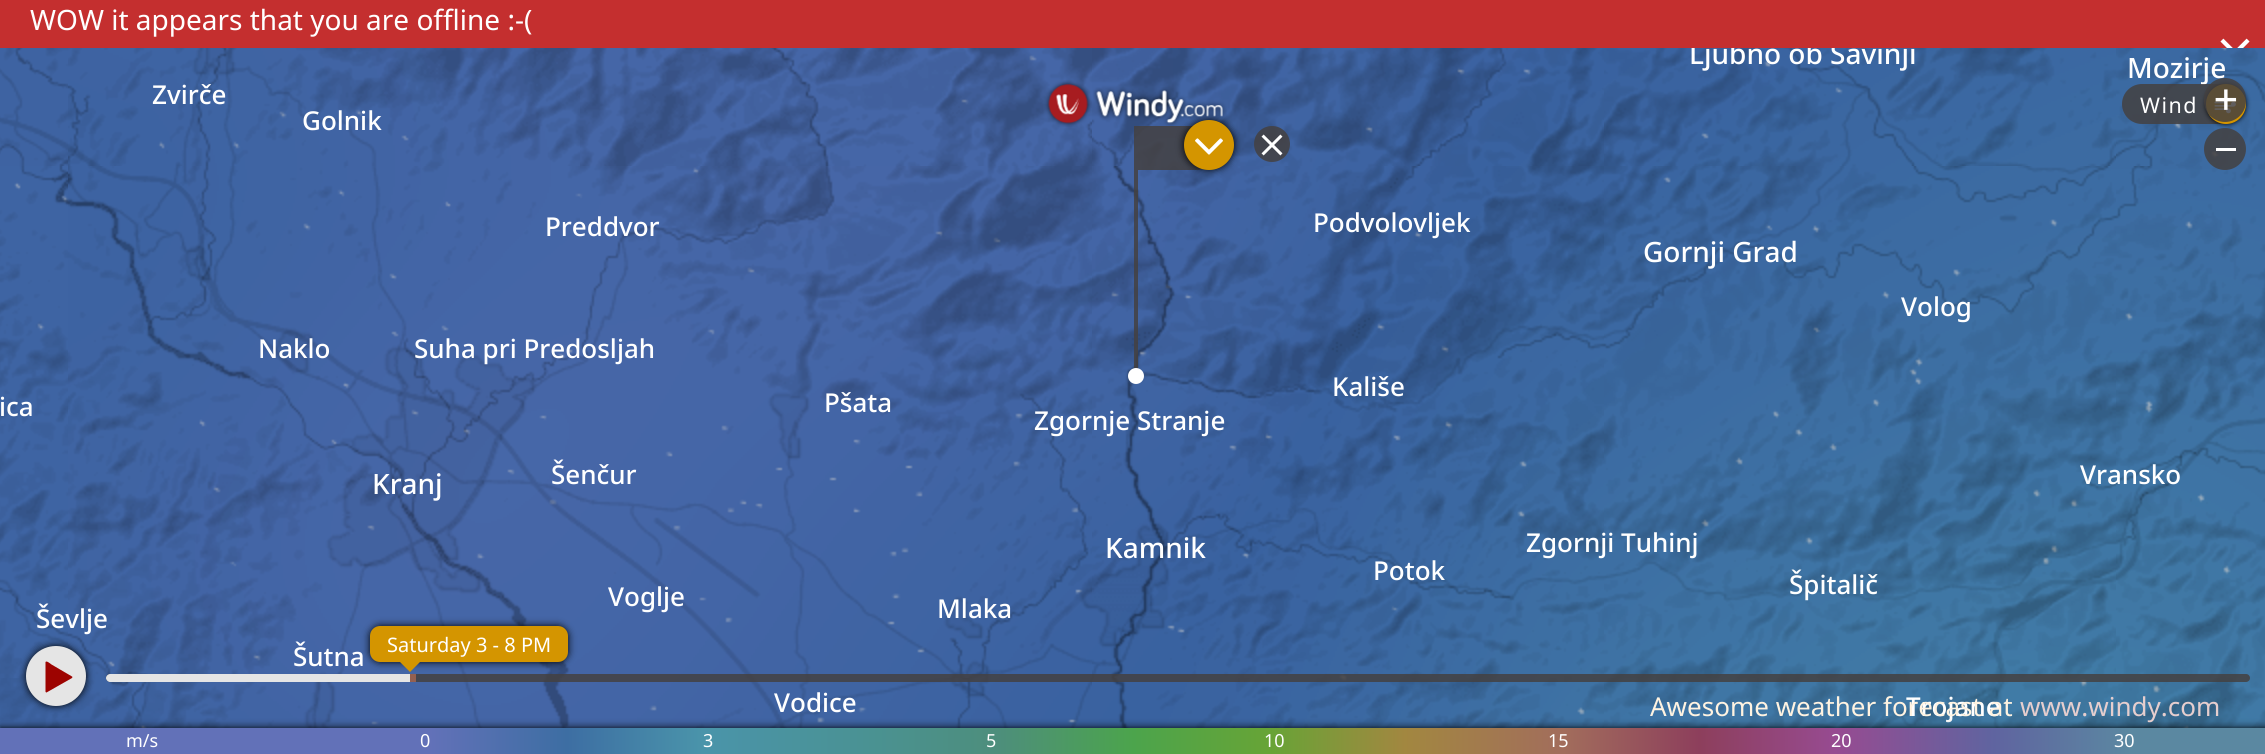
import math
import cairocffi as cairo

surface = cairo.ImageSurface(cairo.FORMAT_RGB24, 2265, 754)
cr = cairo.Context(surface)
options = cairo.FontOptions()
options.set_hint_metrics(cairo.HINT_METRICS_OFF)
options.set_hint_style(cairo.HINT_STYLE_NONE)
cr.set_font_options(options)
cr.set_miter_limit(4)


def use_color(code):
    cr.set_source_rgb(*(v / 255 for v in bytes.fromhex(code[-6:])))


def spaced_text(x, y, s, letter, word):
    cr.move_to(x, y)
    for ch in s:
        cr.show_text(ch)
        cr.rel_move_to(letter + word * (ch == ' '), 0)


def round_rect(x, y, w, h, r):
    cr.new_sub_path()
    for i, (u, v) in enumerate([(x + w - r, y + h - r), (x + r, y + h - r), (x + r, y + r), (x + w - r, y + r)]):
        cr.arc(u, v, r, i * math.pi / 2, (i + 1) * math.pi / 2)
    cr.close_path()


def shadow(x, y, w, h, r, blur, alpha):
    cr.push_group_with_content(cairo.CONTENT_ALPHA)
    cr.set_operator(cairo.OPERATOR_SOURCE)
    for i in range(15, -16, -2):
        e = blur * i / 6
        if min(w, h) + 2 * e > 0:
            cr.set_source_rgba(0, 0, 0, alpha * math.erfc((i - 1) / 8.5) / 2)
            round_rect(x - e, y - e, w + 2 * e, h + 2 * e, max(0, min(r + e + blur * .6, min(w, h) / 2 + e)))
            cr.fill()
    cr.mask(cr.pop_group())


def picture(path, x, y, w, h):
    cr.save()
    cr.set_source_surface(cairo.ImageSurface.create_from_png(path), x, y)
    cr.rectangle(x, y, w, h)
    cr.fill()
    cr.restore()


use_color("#ffffff")
cr.paint()
picture("img6.png", 1604, 48, 512, 118)
use_color("#3e63a2")
cr.rectangle(0, 48, 68, 118)
cr.fill()
picture("img4.png", 68, 48, 512, 118)
use_color("#4566a7")
cr.rectangle(580, 48, 512, 118)
cr.fill()
picture("img5.png", 1092, 48, 512, 118)
picture("img7.png", 2116, 48, 149, 118)
use_color("#3e64a3")
cr.rectangle(0, 166, 68, 512)
cr.fill()
picture("img8.png", 68, 166, 512, 512)
picture("img9.png", 580, 166, 512, 512)
picture("img10.png", 1092, 166, 512, 512)
picture("img11.png", 1604, 166, 512, 512)
picture("img12.png", 2116, 166, 149, 512)
use_color("#3d63a2")
cr.rectangle(0, 678, 68, 50)
cr.fill()
picture("img13.png", 68, 678, 512, 50)
picture("img14.png", 580, 678, 512, 50)
picture("img15.png", 1092, 678, 512, 50)
picture("img16.png", 1604, 678, 512, 50)
picture("img17.png", 2116, 678, 149, 50)
picture("img36.png", 14, 48, 2217, 680)
picture("img22.png", 1604, 48, 512, 118)
cr.select_font_face("Noto Sans Medium")
cr.set_font_size(28)
use_color("#ffffff")
cr.move_to(1689, 64)
cr.show_text("Ljubno ob Savinji")
use_color("#c42f2f")
cr.rectangle(0, 0, 2265, 48)
cr.fill()
cr.select_font_face("Noto Sans")
use_color("#ffffff")
cr.move_to(30, 30)
cr.show_text("WOW it appears that you are offline :-(")
picture("img1.png", 2220, 38, 30, 10)
picture("img23.png", 2116, 48, 149, 118)
cr.select_font_face("Noto Sans Medium")
cr.move_to(2127, 78)
cr.show_text("Mozirje")
picture("img19.png", 68, 48, 512, 118)
cr.set_font_size(26)
cr.move_to(152, 104)
cr.show_text("Zvirče")
cr.move_to(302, 130)
cr.show_text("Golnik")
picture("img24.png", 0, 166, 68, 512)
cr.move_to(-1, 416)
cr.show_text("ica")
picture("img25.png", 68, 166, 512, 512)
cr.move_to(258, 358)
cr.show_text("Naklo")
picture("img26.png", 580, 166, 512, 512)
cr.move_to(414, 358)
cr.show_text("Suha pri Predosljah")
cr.set_font_size(28)
cr.move_to(372, 494)
cr.show_text("Kranj")
cr.set_font_size(26)
cr.move_to(36, 628)
cr.show_text("Ševlje")
cr.move_to(293, 666)
cr.show_text("Šutna")
cr.move_to(545, 236)
cr.show_text("Preddvor")
cr.move_to(824, 412)
cr.show_text("Pšata")
cr.move_to(551, 484)
cr.show_text("Šenčur")
cr.move_to(608, 606)
cr.show_text("Voglje")
cr.move_to(937, 618)
cr.show_text("Mlaka")
picture("img27.png", 1092, 166, 512, 512)
cr.move_to(1313, 232)
cr.show_text("Podvolovljek")
cr.move_to(1332, 396)
cr.show_text("Kališe")
cr.move_to(1034, 430)
cr.show_text("Zgornje Stranje")
cr.set_font_size(28)
cr.move_to(1105, 558)
cr.show_text("Kamnik")
cr.set_font_size(26)
cr.move_to(1373, 580)
cr.show_text("Potok")
picture("img28.png", 1604, 166, 512, 512)
cr.set_font_size(28)
cr.move_to(1643, 262)
cr.show_text("Gornji Grad")
cr.set_font_size(26)
cr.move_to(1901, 316)
cr.show_text("Volog")
cr.move_to(1526, 552)
cr.show_text("Zgornji Tuhinj")
cr.move_to(1789, 594)
cr.show_text("Špitalič")
picture("img29.png", 2116, 166, 149, 512)
cr.move_to(2080, 484)
cr.show_text("Vransko")
picture("img32.png", 696, 678, 396, 50)
cr.move_to(774, 712)
cr.show_text("Vodice")
picture("img34.png", 1604, 678, 512, 50)
cr.move_to(1906, 716)
cr.show_text("Trojane")
picture("img21.png", 1092, 48, 512, 118)
cr.set_source_rgba(0.267, 0.255, 0.255, 0.84)
cr.rectangle(1134, 126, 4, 250)
cr.fill()
use_color("#ffffff")
cr.arc(1136, 376, 8, 0, 2 * math.pi)
cr.fill()
cr.set_source_rgba(0.267, 0.255, 0.255, 0.84)
cr.new_path()
cr.move_to(1138, 126)
cr.line_to(1196, 126)
cr.curve_to(1208, 126, 1218, 136, 1218, 148)
cr.curve_to(1218, 160, 1208, 170, 1196, 170)
cr.line_to(1138, 170)
cr.close_path()
cr.fill()
use_color("#000000")
shadow(1184, 120, 50, 50, 25, 4, 1)
use_color("#d49500")
cr.arc(1209, 145, 25, 0, 2 * math.pi)
cr.fill()
picture("img2.png", 1195, 138, 28, 17)
cr.set_source_rgba(0.267, 0.255, 0.255, 0.84)
cr.arc(1272, 144, 18, 0, 2 * math.pi)
cr.fill()
picture("img3.png", 1261, 134, 22, 22)
picture("img18.png", 0, 48, 68, 118)
picture("img20.png", 580, 48, 512, 118)
picture("img30.png", 0, 678, 68, 50)
picture("img31.png", 68, 678, 502, 50)
picture("img33.png", 1092, 678, 512, 50)
picture("img35.png", 2116, 678, 149, 50)
picture("img37.png", 1044, 80, 48, 47)
picture("img38.png", 1093, 87, 134, 39)
round_rect(2122, 84, 124, 40, 20)
cr.fill()
cr.select_font_face("Noto Sans")
cr.set_font_size(21.5)
use_color("#ffffff")
spaced_text(2140, 113, "Wind", 1.5, 0)
use_color("#000000")
shadow(2206, 84, 40, 40, 20, 2.5, 1)
use_color("#d49500")
cr.arc(2226, 104, 20, 0, 2 * math.pi)
cr.fill()
picture("img39.png", 2214, 101, 22, 13)
cr.set_source_rgba(0.267, 0.255, 0.255, 0.84)
round_rect(2204, 78, 42, 44, 21)
cr.fill()
picture("img40.png", 2215, 89, 22, 21)
cr.arc(2225, 149, 21, 0, 2 * math.pi)
cr.fill()
use_color("#ffffff")
cr.rectangle(2216, 148, 20, 3)
cr.fill()
use_color("#000000")
shadow(26, 646, 60, 60, 30, 4, 1)
use_color("#e5e5e5")
cr.arc(56, 676, 30, 0, 2 * math.pi)
cr.fill()
use_color("#9d0300")
cr.new_path()
cr.move_to(72.5, 677)
cr.line_to(72, 676.5)
cr.line_to(51.5, 664.5)
cr.curve_to(49.5, 663, 46.5, 660.5, 45.5, 662)
cr.line_to(45.5, 691.5)
cr.curve_to(45.5, 692, 46, 692.5, 46.5, 692.5)
cr.line_to(72, 678)
cr.close_path()
cr.fill()
use_color("#000000")
shadow(370, 626, 198, 36, 10, 4, 1)
use_color("#d49500")
round_rect(370, 626, 198, 36, 10)
cr.fill()
cr.set_font_size(20)
use_color("#ffffff")
cr.move_to(387, 652)
cr.show_text("Saturday 3 - 8 PM")
use_color("#d49500")
cr.new_path()
cr.move_to(400, 662)
cr.line_to(420, 662)
cr.line_to(410, 672)
cr.close_path()
cr.fill()
cr.set_source_rgba(0.267, 0.255, 0.255, 0.84)
round_rect(106, 674, 2144, 8, 4)
cr.fill()
use_color("#e5e5e5")
cr.new_path()
cr.move_to(110, 674)
cr.line_to(410, 674)
cr.line_to(410, 682)
cr.line_to(110, 682)
cr.curve_to(108, 682, 106, 680, 106, 678)
cr.curve_to(106, 676, 108, 674, 110, 674)
cr.close_path()
cr.fill()
use_color("#946051")
cr.rectangle(410, 674, 6, 8)
cr.fill()
use_color("#000000")
shadow(0, 728, 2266, 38, 0, 4, 1)
cr.set_font_size(26)
use_color("#fff3e1")
cr.move_to(1650, 716)
cr.show_text("Awesome weather forecast at")
use_color("#e6cece")
cr.move_to(2020, 716)
cr.show_text("www.windy.com")
gradient = cairo.LinearGradient(0, 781, 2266, 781)
gradient.add_color_stop_rgba(0, 0.384, 0.443, 0.722, 1)
gradient.add_color_stop_rgba(0.19, 0.384, 0.443, 0.722, 1)
gradient.add_color_stop_rgba(0.25, 0.239, 0.431, 0.639, 1)
gradient.add_color_stop_rgba(0.31, 0.29, 0.58, 0.667, 1)
gradient.add_color_stop_rgba(0.38, 0.29, 0.573, 0.58, 1)
gradient.add_color_stop_rgba(0.44, 0.302, 0.557, 0.486, 1)
gradient.add_color_stop_rgba(0.5, 0.298, 0.643, 0.298, 1)
gradient.add_color_stop_rgba(0.56, 0.404, 0.643, 0.212, 1)
gradient.add_color_stop_rgba(0.62, 0.635, 0.529, 0.251, 1)
gradient.add_color_stop_rgba(0.69, 0.635, 0.427, 0.361, 1)
gradient.add_color_stop_rgba(0.75, 0.553, 0.247, 0.361, 1)
gradient.add_color_stop_rgba(0.81, 0.592, 0.294, 0.569, 1)
gradient.add_color_stop_rgba(0.88, 0.373, 0.392, 0.627, 1)
gradient.add_color_stop_rgba(0.94, 0.357, 0.533, 0.631, 1)
gradient.add_color_stop_rgba(1, 0.357, 0.533, 0.631, 1)
cr.set_source(gradient)
cr.rectangle(0, 728, 2265, 26)
cr.fill()
cr.set_font_size(18)
use_color("#ffffff")
cr.move_to(126, 747)
cr.show_text("m/s")
cr.move_to(420, 747)
cr.show_text("0")
cr.move_to(703, 747)
cr.show_text("3")
cr.move_to(986, 747)
cr.show_text("5")
cr.move_to(1264, 747)
cr.show_text("10")
cr.move_to(1548, 747)
cr.show_text("15")
cr.move_to(1831, 747)
cr.show_text("20")
cr.move_to(2114, 747)
cr.show_text("30")
surface.write_to_png("result.png")
